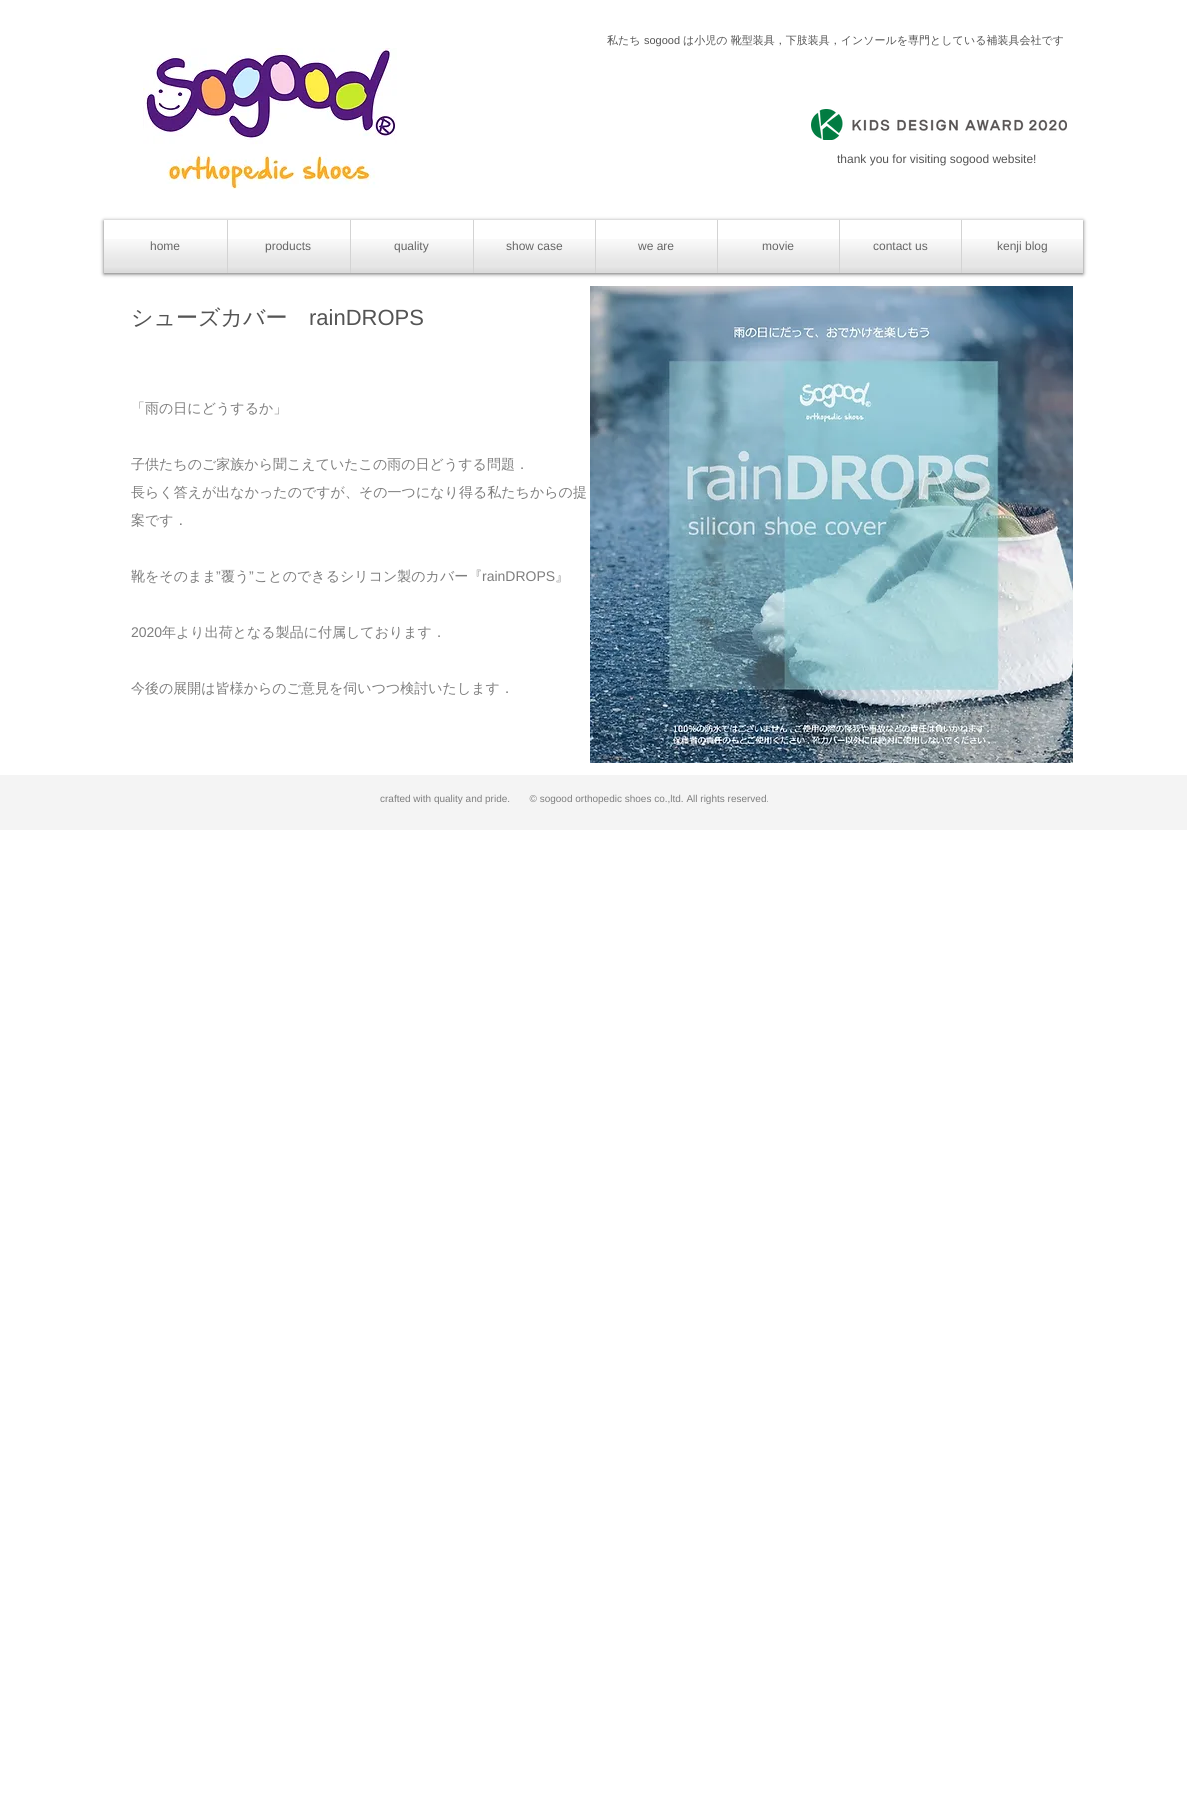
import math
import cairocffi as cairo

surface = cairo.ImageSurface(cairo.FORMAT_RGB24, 1187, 1797)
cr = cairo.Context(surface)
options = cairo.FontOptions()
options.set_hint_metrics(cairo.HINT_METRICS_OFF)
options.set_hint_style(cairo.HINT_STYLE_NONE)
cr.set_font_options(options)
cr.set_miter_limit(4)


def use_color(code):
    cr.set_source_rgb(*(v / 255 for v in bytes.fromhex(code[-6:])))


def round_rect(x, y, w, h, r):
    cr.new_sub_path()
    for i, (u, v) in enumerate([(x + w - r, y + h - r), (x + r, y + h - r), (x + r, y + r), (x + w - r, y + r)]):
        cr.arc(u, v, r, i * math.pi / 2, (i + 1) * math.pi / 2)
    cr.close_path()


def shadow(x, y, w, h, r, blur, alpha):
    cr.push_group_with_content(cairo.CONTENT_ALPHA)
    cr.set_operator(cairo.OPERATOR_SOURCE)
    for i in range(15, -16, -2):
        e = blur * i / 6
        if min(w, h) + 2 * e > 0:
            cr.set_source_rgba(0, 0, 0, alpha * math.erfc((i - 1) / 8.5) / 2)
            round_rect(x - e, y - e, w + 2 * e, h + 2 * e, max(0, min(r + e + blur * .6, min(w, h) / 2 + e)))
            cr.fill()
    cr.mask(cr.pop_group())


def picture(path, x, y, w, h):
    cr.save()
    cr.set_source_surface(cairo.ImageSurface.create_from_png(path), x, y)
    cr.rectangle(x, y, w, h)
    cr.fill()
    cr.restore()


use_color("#ffffff")
cr.paint()
cr.select_font_face("WenQuanYi Zen Hei Medium")
cr.set_font_size(11)
use_color("#545454")
cr.move_to(607, 44)
cr.show_text("私たち")
cr.select_font_face("Liberation Sans")
cr.move_to(644, 44)
cr.show_text("sogood")
cr.select_font_face("WenQuanYi Zen Hei Medium")
cr.move_to(683, 44)
cr.show_text("は小児の 靴型装具，下肢装具，インソールを専門としている補装具会社です")
picture("img1.png", 143, 48, 254, 141)
picture("img2.png", 811, 109, 256, 31)
cr.select_font_face("Liberation Sans")
cr.set_font_size(12)
cr.move_to(837, 163)
cr.show_text("thank you for visiting sogood website!")
use_color("#000000")
shadow(104, 221, 979, 53, 0, 2, 0.6)
use_color("#ffffff")
cr.rectangle(104, 220, 123, 53)
cr.fill()
use_color("#545454")
cr.move_to(150, 250)
cr.show_text("home")
picture("img3.png", 150, 241, 30, 9)
picture("img4.png", 104, 239, 123, 34)
use_color("#ffffff")
cr.rectangle(228, 220, 122, 53)
cr.fill()
use_color("#d3d3d3")
cr.rectangle(227, 220, 1, 53)
cr.fill()
use_color("#545454")
cr.move_to(265, 250)
cr.show_text("products")
picture("img5.png", 266, 241, 45, 12)
picture("img6.png", 228, 239, 122, 34)
use_color("#ffffff")
cr.rectangle(351, 220, 122, 53)
cr.fill()
use_color("#d3d3d3")
cr.rectangle(350, 220, 1, 53)
cr.fill()
use_color("#545454")
cr.move_to(394, 250)
cr.show_text("quality")
picture("img7.png", 394, 241, 35, 12)
picture("img8.png", 351, 239, 122, 34)
use_color("#ffffff")
cr.rectangle(474, 220, 121, 53)
cr.fill()
use_color("#d3d3d3")
cr.rectangle(473, 220, 1, 53)
cr.fill()
use_color("#545454")
cr.move_to(506, 250)
cr.show_text("show case")
picture("img9.png", 506, 241, 56, 9)
picture("img10.png", 474, 239, 121, 34)
use_color("#ffffff")
cr.rectangle(596, 220, 121, 53)
cr.fill()
use_color("#d3d3d3")
cr.rectangle(595, 220, 1, 53)
cr.fill()
use_color("#545454")
cr.move_to(638, 250)
cr.show_text("we are")
picture("img11.png", 638, 243, 36, 7)
picture("img12.png", 596, 239, 121, 34)
use_color("#ffffff")
cr.rectangle(718, 220, 121, 53)
cr.fill()
use_color("#d3d3d3")
cr.rectangle(717, 220, 1, 53)
cr.fill()
use_color("#545454")
cr.move_to(762, 250)
cr.show_text("movie")
picture("img13.png", 762, 241, 32, 9)
picture("img14.png", 718, 239, 121, 34)
use_color("#ffffff")
cr.rectangle(840, 220, 121, 53)
cr.fill()
use_color("#d3d3d3")
cr.rectangle(839, 220, 1, 53)
cr.fill()
use_color("#545454")
cr.move_to(873, 250)
cr.show_text("contact us")
picture("img15.png", 873, 242, 54, 8)
picture("img16.png", 840, 239, 121, 34)
use_color("#ffffff")
cr.rectangle(962, 220, 121, 53)
cr.fill()
use_color("#d3d3d3")
cr.rectangle(961, 220, 1, 53)
cr.fill()
use_color("#545454")
cr.move_to(997, 250)
cr.show_text("kenji blog")
picture("img17.png", 997, 241, 50, 12)
picture("img18.png", 962, 239, 121, 34)
cr.select_font_face("WenQuanYi Zen Hei Medium")
cr.set_font_size(22)
cr.move_to(131, 325)
cr.show_text("シューズカバー")
cr.select_font_face("Liberation Sans")
cr.move_to(309, 325)
cr.show_text("rainDROPS")
picture("img19.png", 590, 286, 483, 477)
cr.select_font_face("WenQuanYi Zen Hei Medium")
cr.set_font_size(14)
use_color("#7e7e7e")
cr.move_to(131, 413)
cr.show_text("「雨の日にどうするか」")
cr.move_to(131, 469)
cr.show_text("子供たちのご家族から聞こえていたこの雨の日どうする問題．")
cr.move_to(131, 497)
cr.show_text("長らく答えが出なかったのですが、その一つになり得る私たちからの提")
cr.move_to(131, 525)
cr.show_text("案です．")
cr.move_to(131, 581)
cr.show_text("靴をそのまま")
cr.select_font_face("Liberation Sans")
cr.move_to(216, 581)
cr.show_text("”")
cr.select_font_face("WenQuanYi Zen Hei Medium")
cr.move_to(221, 581)
cr.show_text("覆う")
cr.select_font_face("Liberation Sans")
cr.move_to(249, 581)
cr.show_text("”")
cr.select_font_face("WenQuanYi Zen Hei Medium")
cr.move_to(254, 581)
cr.show_text("ことのできるシリコン製のカバー『")
cr.select_font_face("Liberation Sans")
cr.move_to(482, 581)
cr.show_text("rainDROPS")
cr.select_font_face("WenQuanYi Zen Hei Medium")
cr.move_to(555, 581)
cr.show_text("』")
cr.select_font_face("Liberation Sans")
cr.move_to(131, 637)
cr.show_text("2020")
cr.select_font_face("WenQuanYi Zen Hei Medium")
cr.move_to(162, 637)
cr.show_text("年より出荷となる製品に付属しております．")
cr.move_to(131, 693)
cr.show_text("今後の展開は皆様からのご意見を伺いつつ検討いたします．")
use_color("#f4f4f4")
cr.rectangle(0, 775, 1187, 55)
cr.fill()
cr.select_font_face("Liberation Sans")
cr.set_font_size(10)
use_color("#7e7e7e")
cr.move_to(380, 802)
cr.show_text("crafted with quality and pride.       © sogood orthopedic shoes co.,ltd. All rights reserved.")
surface.write_to_png("result.png")
